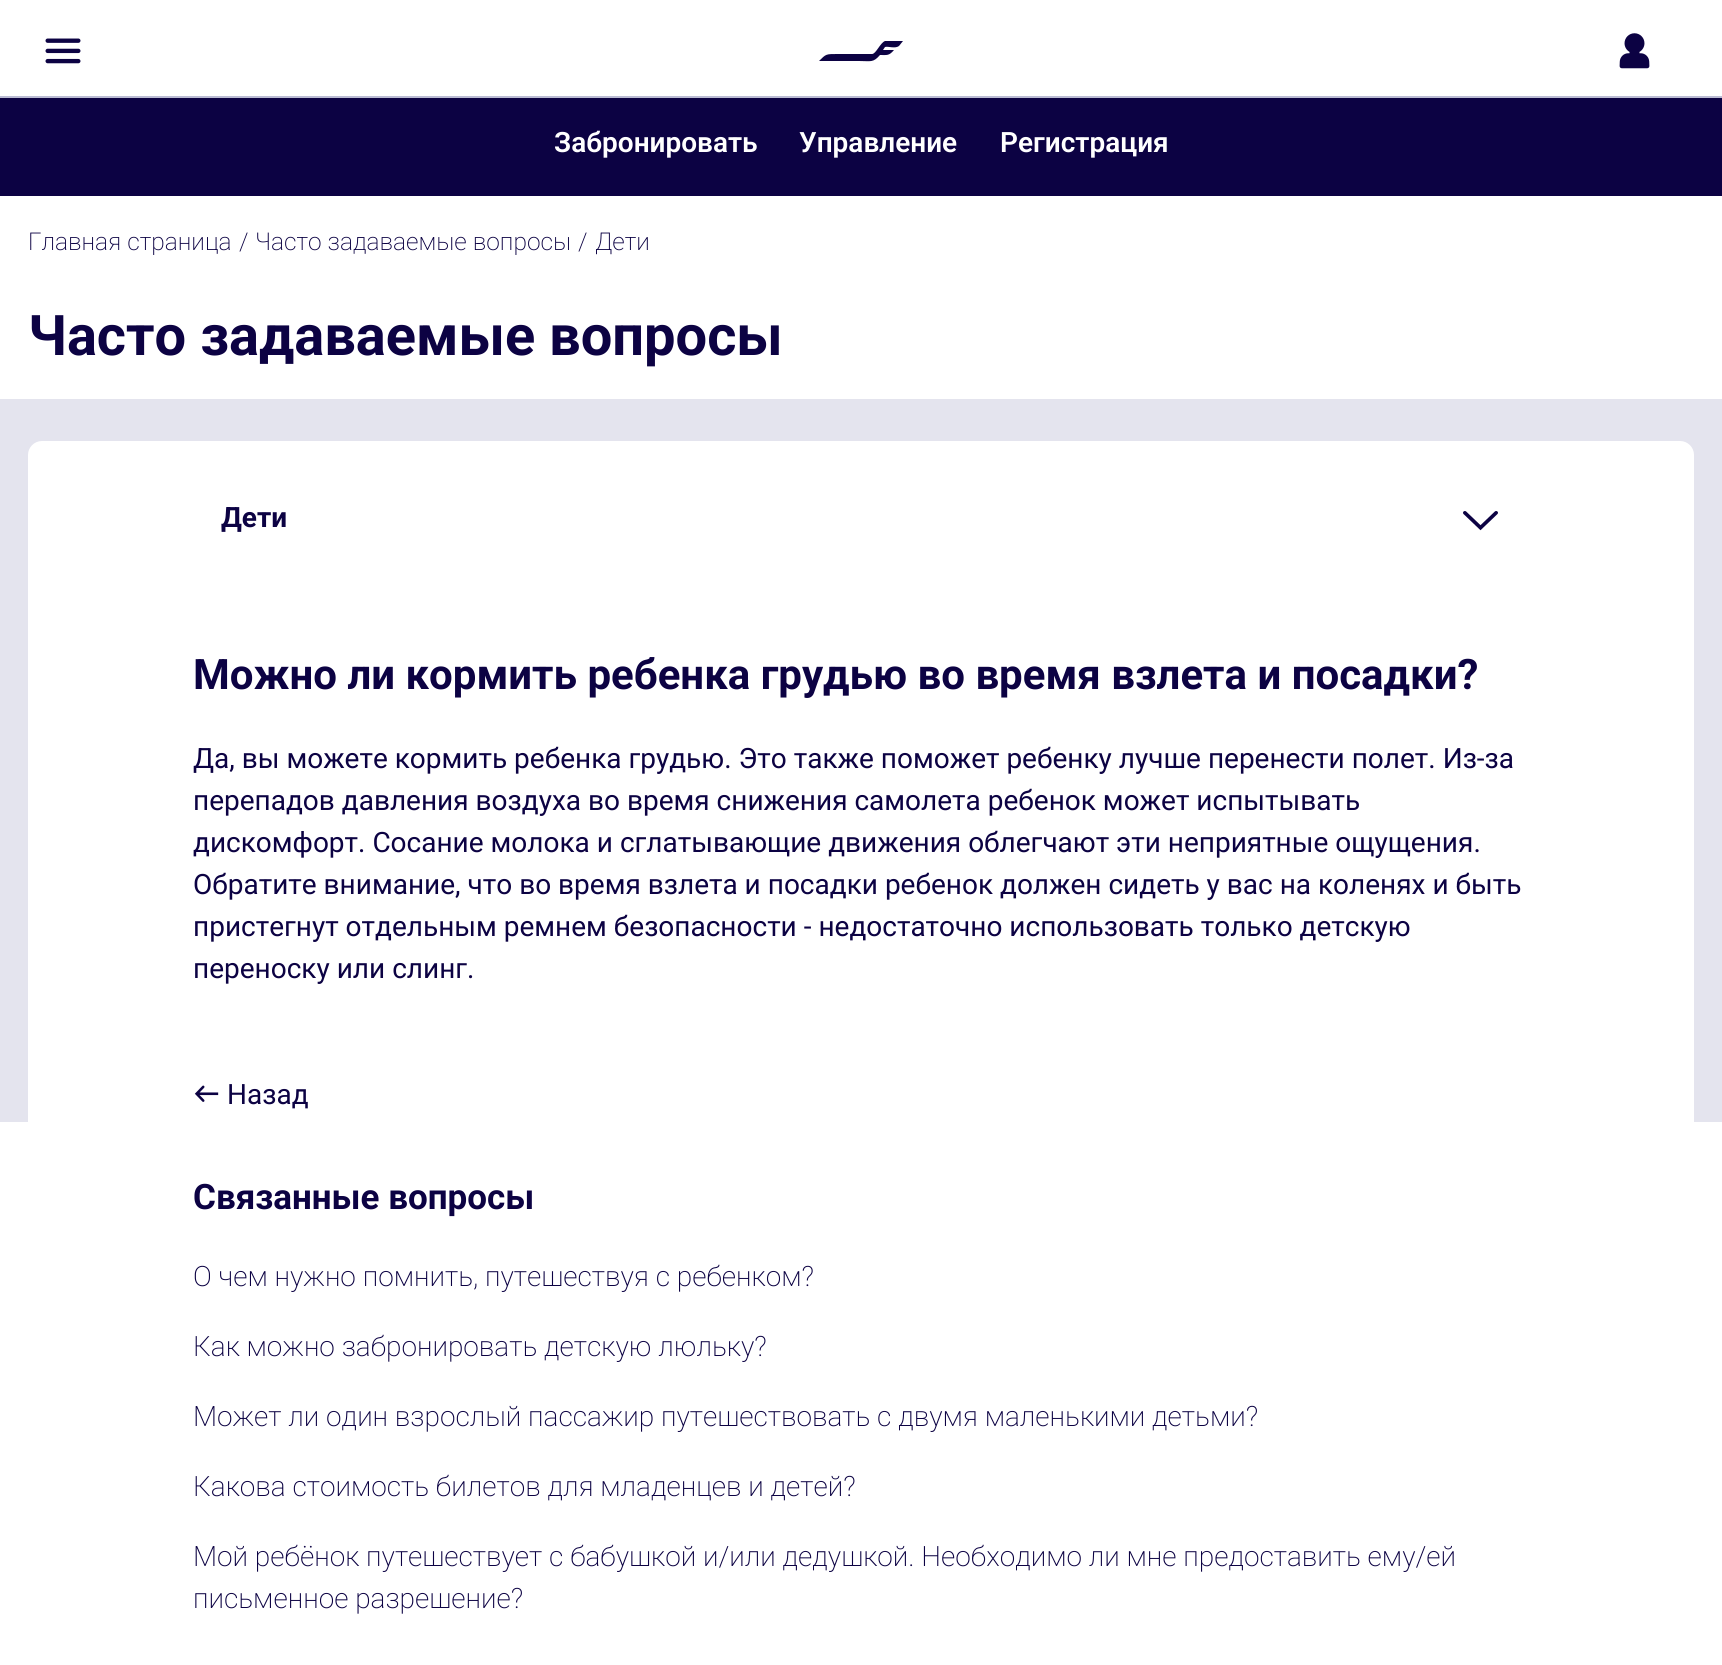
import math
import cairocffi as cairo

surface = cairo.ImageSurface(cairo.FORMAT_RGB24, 1722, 1665)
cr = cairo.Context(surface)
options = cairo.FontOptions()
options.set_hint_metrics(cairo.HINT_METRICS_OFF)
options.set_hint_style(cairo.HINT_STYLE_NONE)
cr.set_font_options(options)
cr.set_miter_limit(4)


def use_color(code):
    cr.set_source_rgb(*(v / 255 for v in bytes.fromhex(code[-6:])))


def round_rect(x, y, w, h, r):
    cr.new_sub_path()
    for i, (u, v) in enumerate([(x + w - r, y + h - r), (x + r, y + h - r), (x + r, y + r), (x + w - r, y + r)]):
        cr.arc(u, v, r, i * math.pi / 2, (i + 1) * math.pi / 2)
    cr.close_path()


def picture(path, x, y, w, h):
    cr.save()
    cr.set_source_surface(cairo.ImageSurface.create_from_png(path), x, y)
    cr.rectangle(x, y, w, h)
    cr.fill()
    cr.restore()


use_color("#ffffff")
cr.paint()
use_color("#bbbcd4")
cr.rectangle(0, 96, 1722, 2)
cr.fill()
picture("img1.png", 45, 38, 36, 26)
use_color("#0c0243")
cr.new_path()
cr.move_to(836, 61)
cr.line_to(819, 61)
cr.curve_to(826, 54, 826, 54, 837, 54)
cr.line_to(872, 54)
cr.curve_to(876, 54, 880, 43, 885, 41)
cr.line_to(903, 41)
cr.line_to(899, 46)
cr.curve_to(895, 49, 888, 46, 885, 47)
cr.line_to(883, 50)
cr.line_to(894, 50)
cr.curve_to(889, 56, 887, 55, 880, 55)
cr.curve_to(873, 63, 871, 61, 859, 61)
cr.line_to(836, 61)
cr.fill()
picture("img2.png", 1619, 33, 31, 36)
cr.rectangle(0, 98, 1722, 98)
cr.fill()
cr.select_font_face("Roboto SemiBold")
cr.set_font_size(28)
use_color("#ffffff")
cr.move_to(554, 152)
cr.show_text("Забронировать")
cr.move_to(799, 152)
cr.show_text("Управление")
cr.move_to(1000, 152)
cr.show_text("Регистрация")
cr.select_font_face("Roboto ExtraLight")
cr.set_font_size(24.5)
use_color("#0c0243")
cr.move_to(28, 250)
cr.show_text("Главная страница")
cr.move_to(239, 250)
cr.show_text("/")
cr.move_to(255, 250)
cr.show_text("Часто задаваемые вопросы")
cr.move_to(578, 250)
cr.show_text("/")
cr.move_to(595, 250)
cr.show_text("Дети")
cr.select_font_face("Roboto", cairo.FONT_SLANT_NORMAL, cairo.FONT_WEIGHT_BOLD)
cr.set_font_size(56)
cr.move_to(28, 355)
cr.show_text("Часто задаваемые вопросы")
use_color("#e4e4ee")
cr.rectangle(0, 399, 1722, 723)
cr.fill()
use_color("#ffffff")
round_rect(28, 441, 1666, 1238, 14)
cr.fill()
cr.set_font_size(28)
use_color("#0c0243")
cr.move_to(221, 527)
cr.show_text("Дети")
picture("img3.png", 1463, 511, 35, 20)
cr.set_font_size(42)
cr.move_to(193, 689)
cr.show_text("Можно ли кормить ребенка грудью во время взлета и посадки?")
cr.select_font_face("Roboto")
cr.set_font_size(28)
cr.move_to(193, 768)
cr.show_text("Да, вы можете кормить ребенка грудью. Это также поможет ребенку лучше перенести полет. Из-за")
cr.move_to(193, 810)
cr.show_text("перепадов давления воздуха во время снижения самолета ребенок может испытывать")
cr.move_to(193, 852)
cr.show_text("дискомфорт. Сосание молока и сглатывающие движения облегчают эти неприятные ощущения.")
cr.move_to(193, 894)
cr.show_text("Обратите внимание, что во время взлета и посадки ребенок должен сидеть у вас на коленях и быть")
cr.move_to(193, 936)
cr.show_text("пристегнут отдельным ремнем безопасности - недостаточно использовать только детскую")
cr.move_to(193, 978)
cr.show_text("переноску или слинг.")
picture("img4.png", 194, 1085, 25, 17)
cr.move_to(227, 1104)
cr.show_text("Назад")
cr.select_font_face("Roboto", cairo.FONT_SLANT_NORMAL, cairo.FONT_WEIGHT_BOLD)
cr.set_font_size(35)
cr.move_to(193, 1209)
cr.show_text("Связанные вопросы")
cr.select_font_face("Roboto ExtraLight")
cr.set_font_size(28)
cr.move_to(193, 1286)
cr.show_text("О чем нужно помнить, путешествуя с ребенком?")
cr.move_to(193, 1356)
cr.show_text("Как можно забронировать детскую люльку?")
cr.move_to(193, 1426)
cr.show_text("Может ли один взрослый пассажир путешествовать с двумя маленькими детьми?")
cr.move_to(193, 1496)
cr.show_text("Какова стоимость билетов для младенцев и детей?")
cr.move_to(193, 1566)
cr.show_text("Мой ребёнок путешествует с бабушкой и/или дедушкой. Необходимо ли мне предоставить ему/ей")
cr.move_to(193, 1608)
cr.show_text("письменное разрешение?")
surface.write_to_png("result.png")
